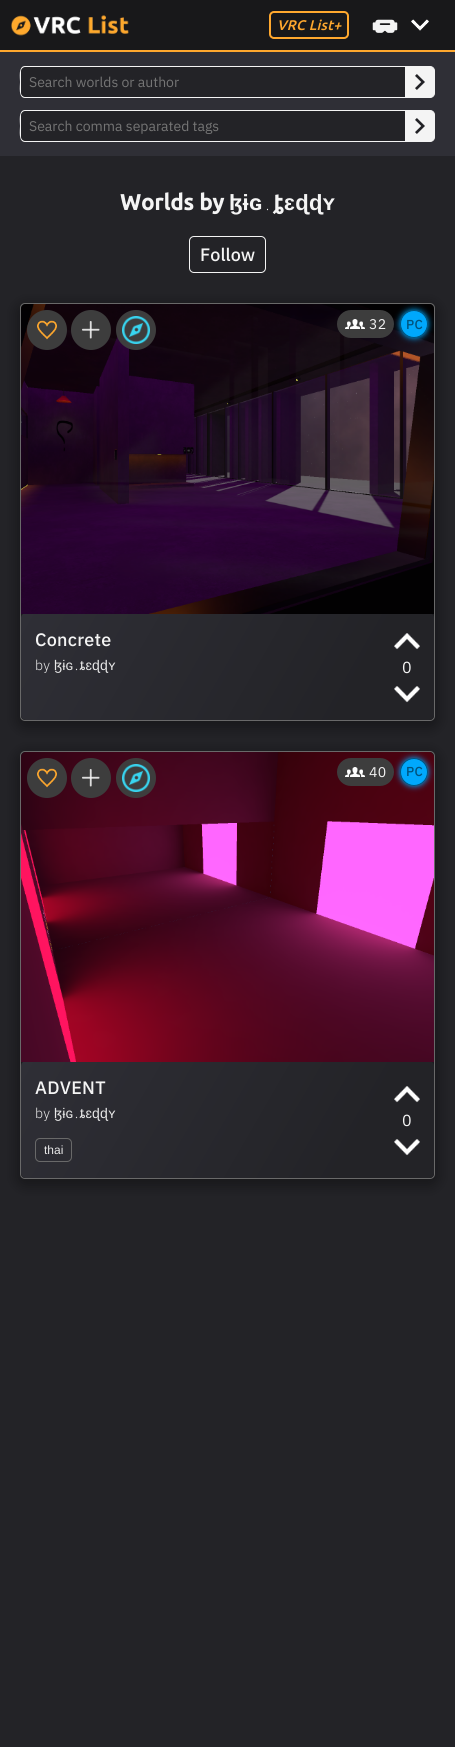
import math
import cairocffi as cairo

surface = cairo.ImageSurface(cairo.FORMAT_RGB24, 455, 1747)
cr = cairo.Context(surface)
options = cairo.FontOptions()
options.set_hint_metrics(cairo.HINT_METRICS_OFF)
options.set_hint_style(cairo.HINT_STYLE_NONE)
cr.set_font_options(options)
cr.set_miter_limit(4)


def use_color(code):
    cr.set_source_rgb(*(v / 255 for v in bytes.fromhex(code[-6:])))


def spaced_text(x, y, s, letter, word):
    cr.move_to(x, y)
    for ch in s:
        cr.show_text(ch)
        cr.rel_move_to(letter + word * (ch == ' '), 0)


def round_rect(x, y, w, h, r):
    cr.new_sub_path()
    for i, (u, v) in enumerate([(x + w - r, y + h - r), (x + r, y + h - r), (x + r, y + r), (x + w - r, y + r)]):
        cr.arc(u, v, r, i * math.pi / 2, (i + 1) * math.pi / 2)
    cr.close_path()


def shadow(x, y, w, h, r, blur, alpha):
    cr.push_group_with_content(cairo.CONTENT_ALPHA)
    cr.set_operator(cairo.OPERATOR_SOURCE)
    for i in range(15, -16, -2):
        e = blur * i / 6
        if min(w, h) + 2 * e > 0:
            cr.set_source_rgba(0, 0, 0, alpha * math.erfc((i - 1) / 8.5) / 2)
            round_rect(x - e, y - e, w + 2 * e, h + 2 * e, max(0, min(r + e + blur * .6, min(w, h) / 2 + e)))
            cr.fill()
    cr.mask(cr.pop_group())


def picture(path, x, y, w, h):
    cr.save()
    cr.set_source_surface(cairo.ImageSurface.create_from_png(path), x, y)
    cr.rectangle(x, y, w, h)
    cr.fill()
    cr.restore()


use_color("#232327")
cr.paint()
use_color("#18181a")
cr.rectangle(0, 0, 455, 50)
cr.fill()
use_color("#ffa82e")
cr.rectangle(0, 50, 455, 2)
cr.fill()
picture("img1.png", 11, 15, 118, 21)
round_rect(270, 12, 78, 26, 4)
cr.stroke()
cr.select_font_face("Ubuntu Medium", cairo.FONT_SLANT_ITALIC)
cr.set_font_size(14)
spaced_text(277, 30, "VRC List+", 0.25, 0)
picture("img2.png", 372, 19, 26, 14)
picture("img3.png", 411, 19, 18, 12)
use_color("#2f2f36")
cr.rectangle(0, 52, 455, 104)
cr.fill()
use_color("#232327")
cr.new_path()
cr.move_to(25, 66)
cr.line_to(405, 66)
cr.line_to(405, 98)
cr.line_to(25, 98)
cr.curve_to(22, 98, 20, 96, 20, 93)
cr.line_to(20, 71)
cr.curve_to(20, 68, 22, 66, 25, 66)
cr.close_path()
cr.fill()
use_color("#f4f4f4")
cr.set_fill_rule(cairo.FILL_RULE_EVEN_ODD)
cr.new_path()
cr.move_to(25, 66)
cr.line_to(405, 66)
cr.line_to(405, 98)
cr.line_to(25, 98)
cr.curve_to(18, 98, 20, 86, 20, 82)
cr.curve_to(20, 78, 18, 66, 25, 66)
cr.close_path()
cr.move_to(25, 67)
cr.line_to(405, 67)
cr.line_to(405, 97)
cr.line_to(25, 97)
cr.curve_to(23, 97, 21, 95, 21, 93)
cr.line_to(21, 71)
cr.curve_to(21, 69, 23, 67, 25, 67)
cr.close_path()
cr.fill()
cr.select_font_face("IBM Plex Sans")
use_color("#757575")
cr.move_to(29, 87)
cr.show_text("Search worlds or author")
use_color("#f4f4f4")
cr.new_path()
cr.move_to(405.5, 66.5)
cr.line_to(430, 66.5)
cr.curve_to(432.5, 66.5, 434.5, 68.5, 434.5, 71)
cr.line_to(434.5, 93)
cr.curve_to(434.5, 95.5, 432.5, 97.5, 430, 97.5)
cr.line_to(405.5, 97.5)
cr.close_path()
cr.fill_preserve()
cr.set_line_width(1)
cr.stroke()
picture("img4.png", 415, 74, 10, 16)
use_color("#232327")
cr.new_path()
cr.move_to(25, 110)
cr.line_to(405, 110)
cr.line_to(405, 142)
cr.line_to(25, 142)
cr.curve_to(22, 142, 20, 140, 20, 137)
cr.line_to(20, 115)
cr.curve_to(20, 112, 22, 110, 25, 110)
cr.close_path()
cr.fill()
use_color("#f4f4f4")
cr.new_path()
cr.move_to(25, 110)
cr.line_to(405, 110)
cr.line_to(405, 142)
cr.line_to(25, 142)
cr.curve_to(18, 142, 20, 130, 20, 126)
cr.curve_to(20, 122, 18, 110, 25, 110)
cr.close_path()
cr.move_to(25, 111)
cr.line_to(405, 111)
cr.line_to(405, 141)
cr.line_to(25, 141)
cr.curve_to(23, 141, 21, 139, 21, 137)
cr.line_to(21, 115)
cr.curve_to(21, 113, 23, 111, 25, 111)
cr.close_path()
cr.fill()
use_color("#757575")
cr.move_to(29, 131)
cr.show_text("Search comma separated tags")
use_color("#f4f4f4")
cr.new_path()
cr.move_to(405.5, 110.5)
cr.line_to(430, 110.5)
cr.curve_to(432.5, 110.5, 434.5, 112.5, 434.5, 115)
cr.line_to(434.5, 137)
cr.curve_to(434.5, 139.5, 432.5, 141.5, 430, 141.5)
cr.line_to(405.5, 141.5)
cr.close_path()
cr.fill_preserve()
cr.stroke()
picture("img4.png", 415, 118, 10, 16)
cr.select_font_face("Ubuntu", cairo.FONT_SLANT_NORMAL, cairo.FONT_WEIGHT_BOLD)
cr.set_font_size(22)
spaced_text(120, 210, "Worlds by", 0.25, 0)
cr.select_font_face("Liberation Sans", cairo.FONT_SLANT_NORMAL, cairo.FONT_WEIGHT_BOLD)
spaced_text(229, 210, "ɮɨɢ", 0.25, 0)
cr.select_font_face("Noto Sans Thin")
spaced_text(262, 210, "․", 0.25, 0)
cr.select_font_face("Ubuntu", cairo.FONT_SLANT_NORMAL, cairo.FONT_WEIGHT_BOLD)
spaced_text(273, 210, "ȶ", 0.25, 0)
cr.select_font_face("Liberation Sans", cairo.FONT_SLANT_NORMAL, cairo.FONT_WEIGHT_BOLD)
spaced_text(284, 210, "ɛɖɖʏ", 0.25, 0)
round_rect(189.5, 236.5, 76, 36, 4.5)
cr.stroke()
cr.select_font_face("IBM Plex Sans Medium")
cr.set_font_size(18)
cr.move_to(200, 261)
cr.show_text("Follow")
use_color("#000000")
shadow(16, 303, 423, 426, 9, 6, 0.3)
round_rect(20.5, 303.5, 414, 417, 4.5)
use_color("#696969")
cr.stroke()
gradient = cairo.LinearGradient(49, 564, 406, 769)
gradient.add_color_stop_rgba(0, 0.184, 0.184, 0.212, 1)
gradient.add_color_stop_rgba(0.8, 0.137, 0.137, 0.153, 1)
cr.set_source(gradient)
round_rect(21, 613, 413, 107, 5)
cr.fill()
picture("img5.png", 21, 304, 413, 310)
use_color("#3d3d3d")
cr.arc(47, 330, 20, 0, 2 * math.pi)
cr.fill()
picture("img6.png", 37, 320, 20, 20)
cr.arc(91, 330, 20, 0, 2 * math.pi)
cr.fill()
picture("img7.png", 82, 321, 18, 18)
cr.arc(136, 330, 20, 0, 2 * math.pi)
cr.fill()
picture("img8.png", 122, 316, 28, 28)
round_rect(337, 310, 57, 28, 14)
cr.fill()
picture("img9.png", 345, 319, 20, 10)
cr.select_font_face("IBM Plex Sans")
cr.set_font_size(14)
use_color("#f4f4f4")
spaced_text(369, 329, "32", 0.25, 0)
use_color("#00a8fc")
shadow(400, 310, 28, 28, 14, 3, 1)
use_color("#00a8fc")
cr.arc(414, 324, 13.5, 0, 2 * math.pi)
cr.fill_preserve()
use_color("#00537d")
cr.stroke()
cr.select_font_face("IBM Plex Sans Medium")
cr.set_font_size(13)
spaced_text(406, 329, "PC", 0.25, 0)
cr.set_font_size(18)
use_color("#f4f4f4")
spaced_text(35, 646, "Concrete", 0.25, 0)
cr.select_font_face("IBM Plex Sans Light")
cr.set_font_size(14)
use_color("#e8e8e8")
spaced_text(35, 670, "by", 0.25, 0)
cr.select_font_face("Liberation Sans")
spaced_text(54, 670, "ɮɨɢ", 0.25, 0)
cr.select_font_face("Noto Sans Light")
spaced_text(73, 670, "․", 0.25, 0)
cr.select_font_face("Liberation Sans")
spaced_text(80, 670, "ȶɛɖɖʏ", 0.25, 0)
picture("img10.png", 394, 633, 26, 17)
cr.select_font_face("IBM Plex Sans")
cr.set_font_size(16)
use_color("#f4f4f4")
spaced_text(402, 673, "0", 0.25, 0)
picture("img11.png", 394, 686, 26, 17)
use_color("#000000")
shadow(16, 751, 423, 436, 9, 6, 0.3)
round_rect(20.5, 751.5, 414, 427, 4.5)
use_color("#696969")
cr.stroke()
gradient = cairo.LinearGradient(47, 1015, 408, 1224)
gradient.add_color_stop_rgba(0, 0.184, 0.184, 0.212, 1)
gradient.add_color_stop_rgba(0.8, 0.137, 0.137, 0.153, 1)
cr.set_source(gradient)
round_rect(21, 1061, 413, 117, 5)
cr.fill()
picture("img12.png", 21, 752, 413, 310)
use_color("#3d3d3d")
cr.arc(47, 778, 20, 0, 2 * math.pi)
cr.fill()
picture("img6.png", 37, 768, 20, 20)
cr.arc(91, 778, 20, 0, 2 * math.pi)
cr.fill()
picture("img7.png", 82, 769, 18, 18)
cr.arc(136, 778, 20, 0, 2 * math.pi)
cr.fill()
picture("img8.png", 122, 764, 28, 28)
round_rect(337, 758, 57, 28, 14)
cr.fill()
picture("img9.png", 345, 767, 20, 10)
cr.set_font_size(14)
use_color("#f4f4f4")
spaced_text(369, 777, "40", 0.25, 0)
use_color("#00a8fc")
shadow(400, 758, 28, 28, 14, 3, 1)
use_color("#00a8fc")
cr.arc(414, 772, 13.5, 0, 2 * math.pi)
cr.fill_preserve()
use_color("#00537d")
cr.stroke()
cr.select_font_face("IBM Plex Sans Medium")
cr.set_font_size(13)
spaced_text(406, 776, "PC", 0.25, 0)
cr.set_font_size(18)
use_color("#f4f4f4")
spaced_text(35, 1094, "ADVENT", 0.25, 0)
cr.select_font_face("IBM Plex Sans Light")
cr.set_font_size(14)
use_color("#e8e8e8")
spaced_text(35, 1118, "by", 0.25, 0)
cr.select_font_face("Liberation Sans")
spaced_text(54, 1118, "ɮɨɢ", 0.25, 0)
cr.select_font_face("Noto Sans Light")
spaced_text(73, 1118, "․", 0.25, 0)
cr.select_font_face("Liberation Sans")
spaced_text(80, 1118, "ȶɛɖɖʏ", 0.25, 0)
round_rect(35.5, 1138.5, 36, 23, 4.5)
use_color("#696969")
cr.stroke()
cr.set_font_size(12)
use_color("#e8e8e8")
cr.move_to(44, 1154)
cr.show_text("thai")
picture("img10.png", 394, 1086, 26, 17)
cr.select_font_face("IBM Plex Sans")
cr.set_font_size(16)
use_color("#f4f4f4")
spaced_text(402, 1126, "0", 0.25, 0)
picture("img11.png", 394, 1139, 26, 17)
surface.write_to_png("result.png")
